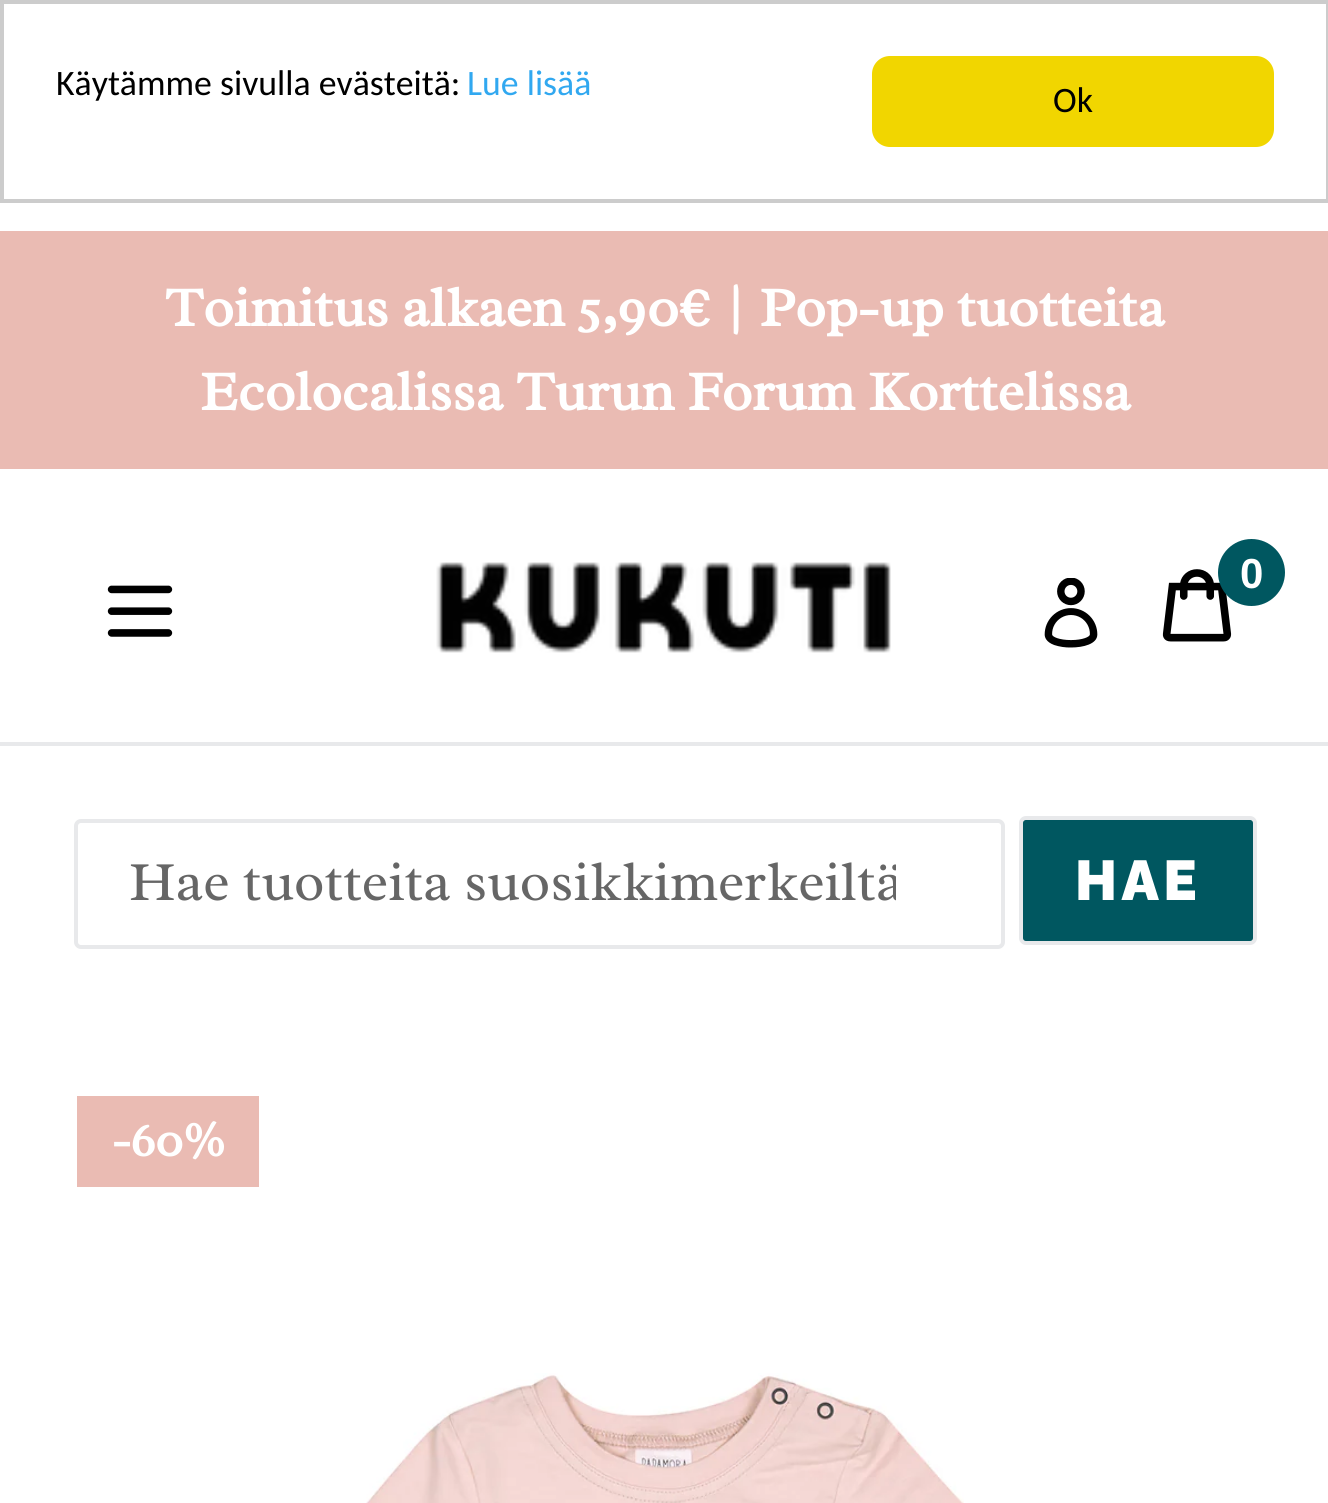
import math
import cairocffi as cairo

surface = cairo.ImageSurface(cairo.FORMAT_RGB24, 1328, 1503)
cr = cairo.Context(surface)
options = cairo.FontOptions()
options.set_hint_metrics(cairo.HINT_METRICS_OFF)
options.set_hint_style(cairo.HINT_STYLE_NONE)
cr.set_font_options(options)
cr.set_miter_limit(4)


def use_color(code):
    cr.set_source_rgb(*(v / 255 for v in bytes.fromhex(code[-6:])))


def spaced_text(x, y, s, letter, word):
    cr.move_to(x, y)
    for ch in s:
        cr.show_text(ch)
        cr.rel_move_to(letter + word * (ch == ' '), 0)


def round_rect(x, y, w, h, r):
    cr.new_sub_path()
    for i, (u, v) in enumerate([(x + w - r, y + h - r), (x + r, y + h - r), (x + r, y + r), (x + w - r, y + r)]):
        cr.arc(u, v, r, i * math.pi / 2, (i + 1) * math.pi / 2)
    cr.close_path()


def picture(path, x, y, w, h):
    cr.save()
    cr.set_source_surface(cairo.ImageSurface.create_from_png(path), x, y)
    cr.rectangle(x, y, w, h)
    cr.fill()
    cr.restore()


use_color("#ffffff")
cr.paint()
cr.rectangle(2, 2, 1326, 199)
use_color("#cccccc")
cr.set_line_width(4)
cr.stroke()
cr.select_font_face("Carlito")
cr.set_font_size(35.75)
use_color("#000000")
cr.move_to(56, 95)
cr.show_text("Käytämme sivulla evästeitä:")
use_color("#31a8f0")
cr.move_to(467, 95)
cr.show_text("Lue lisää")
use_color("#f1d600")
round_rect(872, 56, 402, 91, 18)
cr.fill()
use_color("#000000")
cr.move_to(1053, 112)
cr.show_text("Ok")
use_color("#eabbb3")
cr.rectangle(0, 231, 1328, 238)
cr.fill()
cr.select_font_face("Radley", cairo.FONT_SLANT_NORMAL, cairo.FONT_WEIGHT_BOLD)
cr.set_font_size(56)
use_color("#ffffff")
cr.move_to(165, 326)
cr.show_text("Toimitus alkaen 5,90€ | Pop-up tuotteita")
cr.move_to(200, 410)
cr.show_text("Ecolocalissa Turun Forum Korttelissa")
use_color("#e8e9eb")
cr.rectangle(0, 742, 1328, 4)
cr.fill()
picture("img1.png", 107, 585, 66, 52)
picture("img2.png", 436, 562, 455, 91)
picture("img3.png", 1162, 569, 70, 73)
use_color("#005760")
cr.arc(1251.5, 572.5, 33.5, 0, 2 * math.pi)
cr.fill()
cr.select_font_face("Liberation Sans", cairo.FONT_SLANT_NORMAL, cairo.FONT_WEIGHT_BOLD)
cr.set_font_size(42)
use_color("#ffffff")
cr.move_to(1240, 588)
cr.show_text("0")
picture("img4.png", 1044, 578, 54, 70)
round_rect(76, 821, 927, 126, 5)
use_color("#e8e9eb")
cr.stroke()
cr.save()
cr.rectangle(130, 847, 766, 70)
cr.clip()
cr.select_font_face("Radley")
cr.set_font_size(56)
use_color("#666666")
cr.move_to(129, 900)
cr.show_text("Hae tuotteita suosikkimerkeiltä")
cr.restore()
use_color("#005760")
round_rect(1021, 818, 234, 125, 5)
cr.fill_preserve()
use_color("#e8e9eb")
cr.stroke()
cr.select_font_face("Raleway Thin")
cr.set_font_size(56)
use_color("#ffffff")
spaced_text(1075, 900, "HAE", 4.5, 0)
use_color("#eabbb3")
cr.rectangle(77, 1096, 182, 91)
cr.fill()
cr.select_font_face("Radley", cairo.FONT_SLANT_NORMAL, cairo.FONT_WEIGHT_BOLD)
cr.set_font_size(49)
use_color("#ffffff")
cr.move_to(112, 1156)
cr.show_text("-60%")
picture("img5.png", 366, 1373, 598, 130)
surface.write_to_png("result.png")
